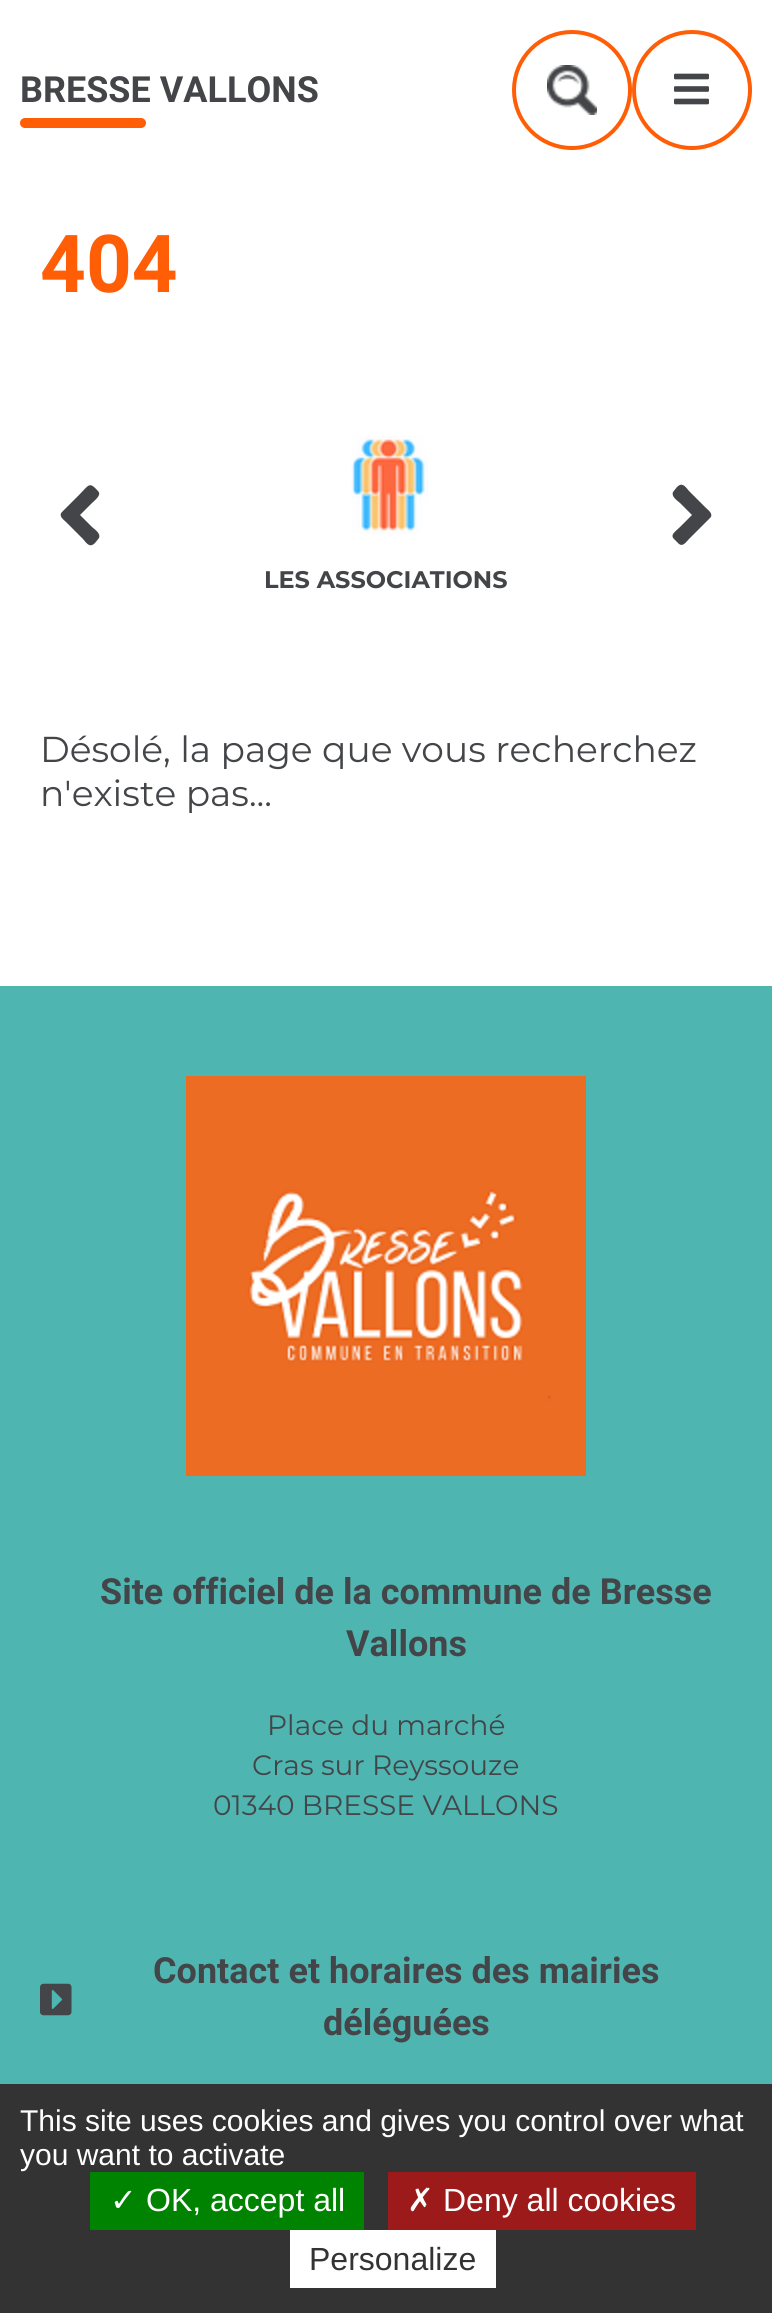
import math
import cairocffi as cairo

surface = cairo.ImageSurface(cairo.FORMAT_RGB24, 772, 2313)
cr = cairo.Context(surface)
options = cairo.FontOptions()
options.set_hint_metrics(cairo.HINT_METRICS_OFF)
options.set_hint_style(cairo.HINT_STYLE_NONE)
cr.set_font_options(options)
cr.set_miter_limit(4)


def use_color(code):
    cr.set_source_rgb(*(v / 255 for v in bytes.fromhex(code[-6:])))


def round_rect(x, y, w, h, r):
    cr.new_sub_path()
    for i, (u, v) in enumerate([(x + w - r, y + h - r), (x + r, y + h - r), (x + r, y + r), (x + w - r, y + r)]):
        cr.arc(u, v, r, i * math.pi / 2, (i + 1) * math.pi / 2)
    cr.close_path()


def picture(path, x, y, w, h):
    cr.save()
    cr.set_source_surface(cairo.ImageSurface.create_from_png(path), x, y)
    cr.rectangle(x, y, w, h)
    cr.fill()
    cr.restore()


use_color("#ffffff")
cr.paint()
cr.select_font_face("Roboto", cairo.FONT_SLANT_NORMAL, cairo.FONT_WEIGHT_BOLD)
cr.set_font_size(36)
use_color("#434548")
cr.move_to(20, 102)
cr.show_text("BRESSE VALLONS")
use_color("#ff5e06")
round_rect(20, 118, 126, 10, 5)
cr.fill()
cr.arc(572, 90, 58, 0, 2 * math.pi)
cr.set_line_width(4)
cr.stroke()
picture("img1.png", 547, 65, 50, 50)
cr.arc(692, 90, 58, 0, 2 * math.pi)
cr.stroke()
picture("img2.png", 674, 73, 35, 32)
cr.set_font_size(80)
cr.move_to(40, 292)
cr.show_text("404")
use_color("#434548")
cr.new_path()
cr.move_to(62, 512)
cr.line_to(79, 495)
cr.curve_to(89, 485, 89, 481, 98, 491)
cr.curve_to(102, 495, 95, 500, 92, 503)
cr.line_to(80, 515)
cr.line_to(92, 527)
cr.curve_to(94, 529, 101, 533, 99, 538)
cr.line_to(95, 543)
cr.curve_to(90, 548, 87, 544, 83, 539)
cr.line_to(66, 522)
cr.curve_to(64, 520, 58, 516, 62, 512)
cr.close_path()
cr.fill()
cr.new_path()
cr.move_to(710, 518)
cr.line_to(689, 539)
cr.curve_to(686, 542, 683, 547, 679, 544)
cr.line_to(675, 540)
cr.curve_to(669, 535, 675, 532, 680, 527)
cr.line_to(692, 515)
cr.line_to(680, 503)
cr.curve_to(678, 501, 671, 497, 673, 492)
cr.line_to(677, 487)
cr.curve_to(682, 482, 685, 486, 689, 491)
cr.line_to(706, 508)
cr.curve_to(708, 510, 714, 514, 710, 518)
cr.close_path()
cr.fill()
picture("img3.png", 351, 436, 77, 98)
cr.select_font_face("Montserrat", cairo.FONT_SLANT_NORMAL, cairo.FONT_WEIGHT_BOLD)
cr.set_font_size(24)
cr.move_to(264, 588)
cr.show_text("LES ASSOCIATIONS")
cr.select_font_face("Montserrat")
cr.set_font_size(36)
cr.move_to(40, 762)
cr.show_text("Désolé, la page que vous recherchez")
cr.move_to(40, 806)
cr.show_text("n'existe pas...")
use_color("#4fb5b1")
cr.rectangle(0, 986, 772, 1098)
cr.fill()
picture("img4.png", 186, 1076, 400, 400)
cr.select_font_face("Roboto", cairo.FONT_SLANT_NORMAL, cairo.FONT_WEIGHT_BOLD)
use_color("#434548")
cr.move_to(100, 1604)
cr.show_text("Site officiel de la commune de Bresse")
cr.move_to(346, 1656)
cr.show_text("Vallons")
cr.select_font_face("Montserrat")
cr.set_font_size(28)
cr.move_to(267, 1735)
cr.show_text("Place du marché")
cr.move_to(252, 1775)
cr.show_text("Cras sur Reyssouze")
cr.move_to(213, 1815)
cr.show_text("01340 BRESSE VALLONS")
cr.select_font_face("Roboto", cairo.FONT_SLANT_NORMAL, cairo.FONT_WEIGHT_BOLD)
cr.set_font_size(36)
cr.move_to(153, 1983)
cr.show_text("Contact et horaires des mairies")
picture("img5.png", 40, 1983, 32, 33)
cr.move_to(323, 2035)
cr.show_text("déléguées")
use_color("#333333")
cr.rectangle(0, 2084, 772, 229)
cr.fill()
cr.select_font_face("Liberation Sans")
cr.set_font_size(30)
use_color("#ffffff")
cr.move_to(20, 2131)
cr.show_text("This site uses cookies and gives you control over what")
cr.move_to(20, 2165)
cr.show_text("you want to activate")
use_color("#008300")
cr.rectangle(90, 2172, 274, 58)
cr.fill()
cr.select_font_face("DejaVu Sans")
cr.set_font_size(32)
use_color("#ffffff")
cr.move_to(110, 2211)
cr.show_text("✓")
cr.select_font_face("Liberation Sans")
cr.move_to(146, 2211)
cr.show_text("OK, accept all")
use_color("#9c1a1a")
cr.rectangle(388, 2172, 308, 58)
cr.fill()
cr.select_font_face("DejaVu Sans")
use_color("#ffffff")
cr.move_to(407, 2211)
cr.show_text("✗")
cr.select_font_face("Liberation Sans")
cr.move_to(443, 2211)
cr.show_text("Deny all cookies")
cr.rectangle(290, 2230, 206, 58)
cr.fill()
use_color("#333333")
cr.move_to(309, 2270)
cr.show_text("Personalize")
surface.write_to_png("result.png")
